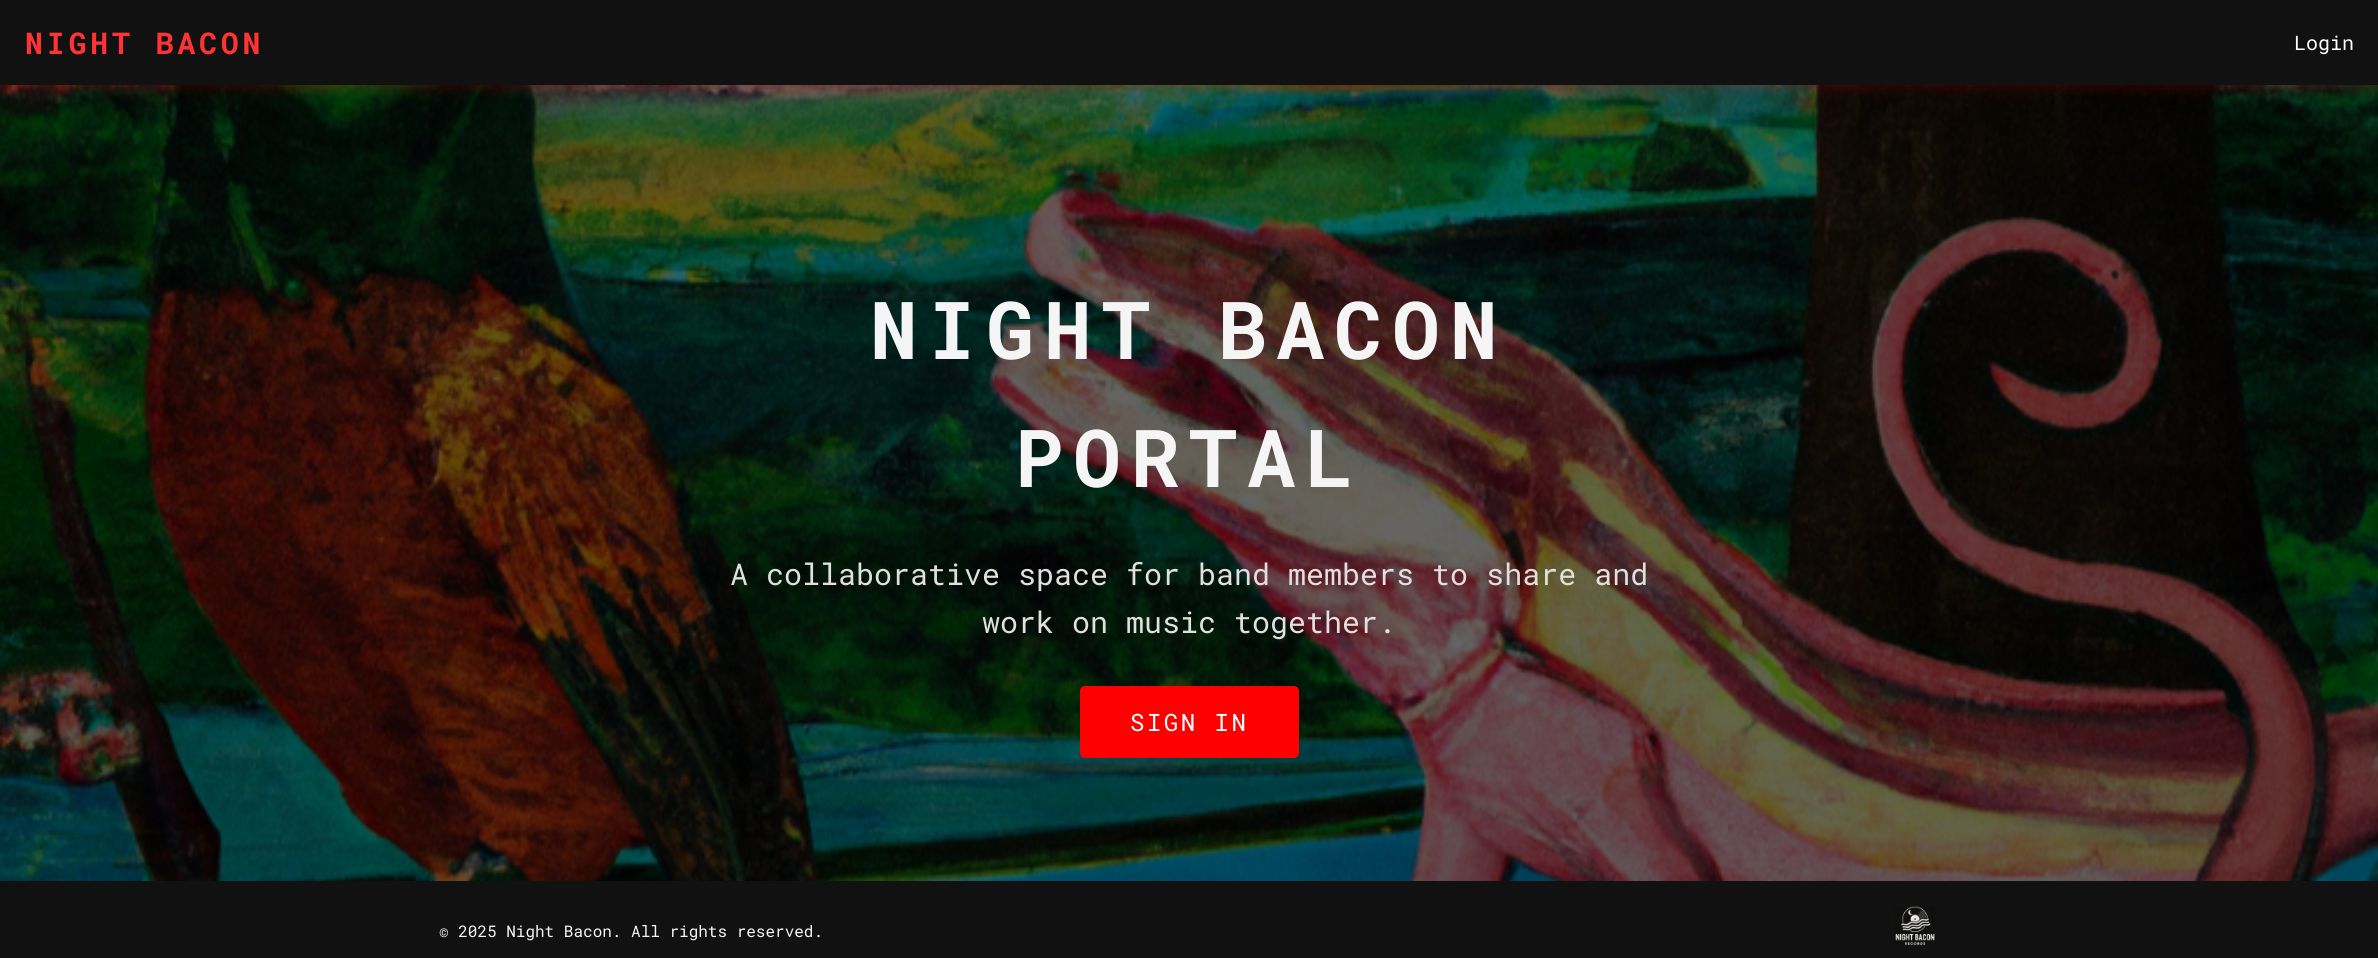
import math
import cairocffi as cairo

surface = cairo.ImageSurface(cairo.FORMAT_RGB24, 2378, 958)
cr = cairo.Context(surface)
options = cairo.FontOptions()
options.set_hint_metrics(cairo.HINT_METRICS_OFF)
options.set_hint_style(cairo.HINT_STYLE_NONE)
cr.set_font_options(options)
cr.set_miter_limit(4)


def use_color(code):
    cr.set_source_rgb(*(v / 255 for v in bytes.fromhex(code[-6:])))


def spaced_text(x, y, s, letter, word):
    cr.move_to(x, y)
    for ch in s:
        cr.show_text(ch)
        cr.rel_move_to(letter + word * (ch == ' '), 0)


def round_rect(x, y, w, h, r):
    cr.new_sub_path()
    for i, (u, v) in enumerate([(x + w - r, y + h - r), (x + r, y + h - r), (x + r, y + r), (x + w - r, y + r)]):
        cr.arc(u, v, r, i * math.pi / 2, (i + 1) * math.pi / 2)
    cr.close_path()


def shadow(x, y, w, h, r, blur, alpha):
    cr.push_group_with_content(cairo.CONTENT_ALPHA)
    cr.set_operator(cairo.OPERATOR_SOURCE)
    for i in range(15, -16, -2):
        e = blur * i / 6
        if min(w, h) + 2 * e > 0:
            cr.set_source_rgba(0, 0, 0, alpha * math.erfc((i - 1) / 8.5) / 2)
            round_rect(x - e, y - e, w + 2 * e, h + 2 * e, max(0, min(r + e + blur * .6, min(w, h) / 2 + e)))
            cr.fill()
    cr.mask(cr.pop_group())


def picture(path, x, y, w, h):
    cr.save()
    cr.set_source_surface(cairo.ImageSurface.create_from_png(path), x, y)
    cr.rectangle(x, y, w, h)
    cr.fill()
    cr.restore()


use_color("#000000")
cr.paint()
picture("img1.png", 0, 85, 2378, 796)
use_color("#ff0000")
shadow(0, 3, 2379, 85, 0, 6, 0.2)
use_color("#111111")
cr.rectangle(0, 0, 2378, 85)
cr.fill()
cr.select_font_face("Roboto Mono", cairo.FONT_SLANT_NORMAL, cairo.FONT_WEIGHT_BOLD)
cr.set_font_size(30)
use_color("#ff3333")
spaced_text(25, 54, "NIGHT BACON", 3.75, 0)
cr.select_font_face("Roboto Mono")
cr.set_font_size(20)
use_color("#ffffff")
cr.move_to(2294, 50)
cr.show_text("Login")
cr.select_font_face("Roboto Mono", cairo.FONT_SLANT_NORMAL, cairo.FONT_WEIGHT_BOLD)
cr.set_font_size(80)
use_color("#f5f5f5")
spaced_text(870, 359, "NIGHT BACON", 10, 0)
spaced_text(1015, 487, "PORTAL", 10, 0)
cr.select_font_face("Roboto Mono")
cr.set_font_size(30)
use_color("#e1e0df")
cr.move_to(730, 585)
cr.show_text("A collaborative space for band members to share and")
cr.move_to(982, 633)
cr.show_text("work on music together.")
use_color("#ff0000")
round_rect(1080, 686, 219, 72, 5)
cr.fill()
cr.set_font_size(24)
use_color("#ffffff")
spaced_text(1130, 731, "SIGN IN", 2.5, 0)
use_color("#111111")
cr.rectangle(0, 881, 2378, 77)
cr.fill()
cr.set_font_size(16)
use_color("#f5f5f5")
cr.move_to(439, 937)
cr.show_text("© 2025 Night Bacon. All rights reserved.")
picture("img2.png", 1895, 906, 40, 39)
surface.write_to_png("result.png")
